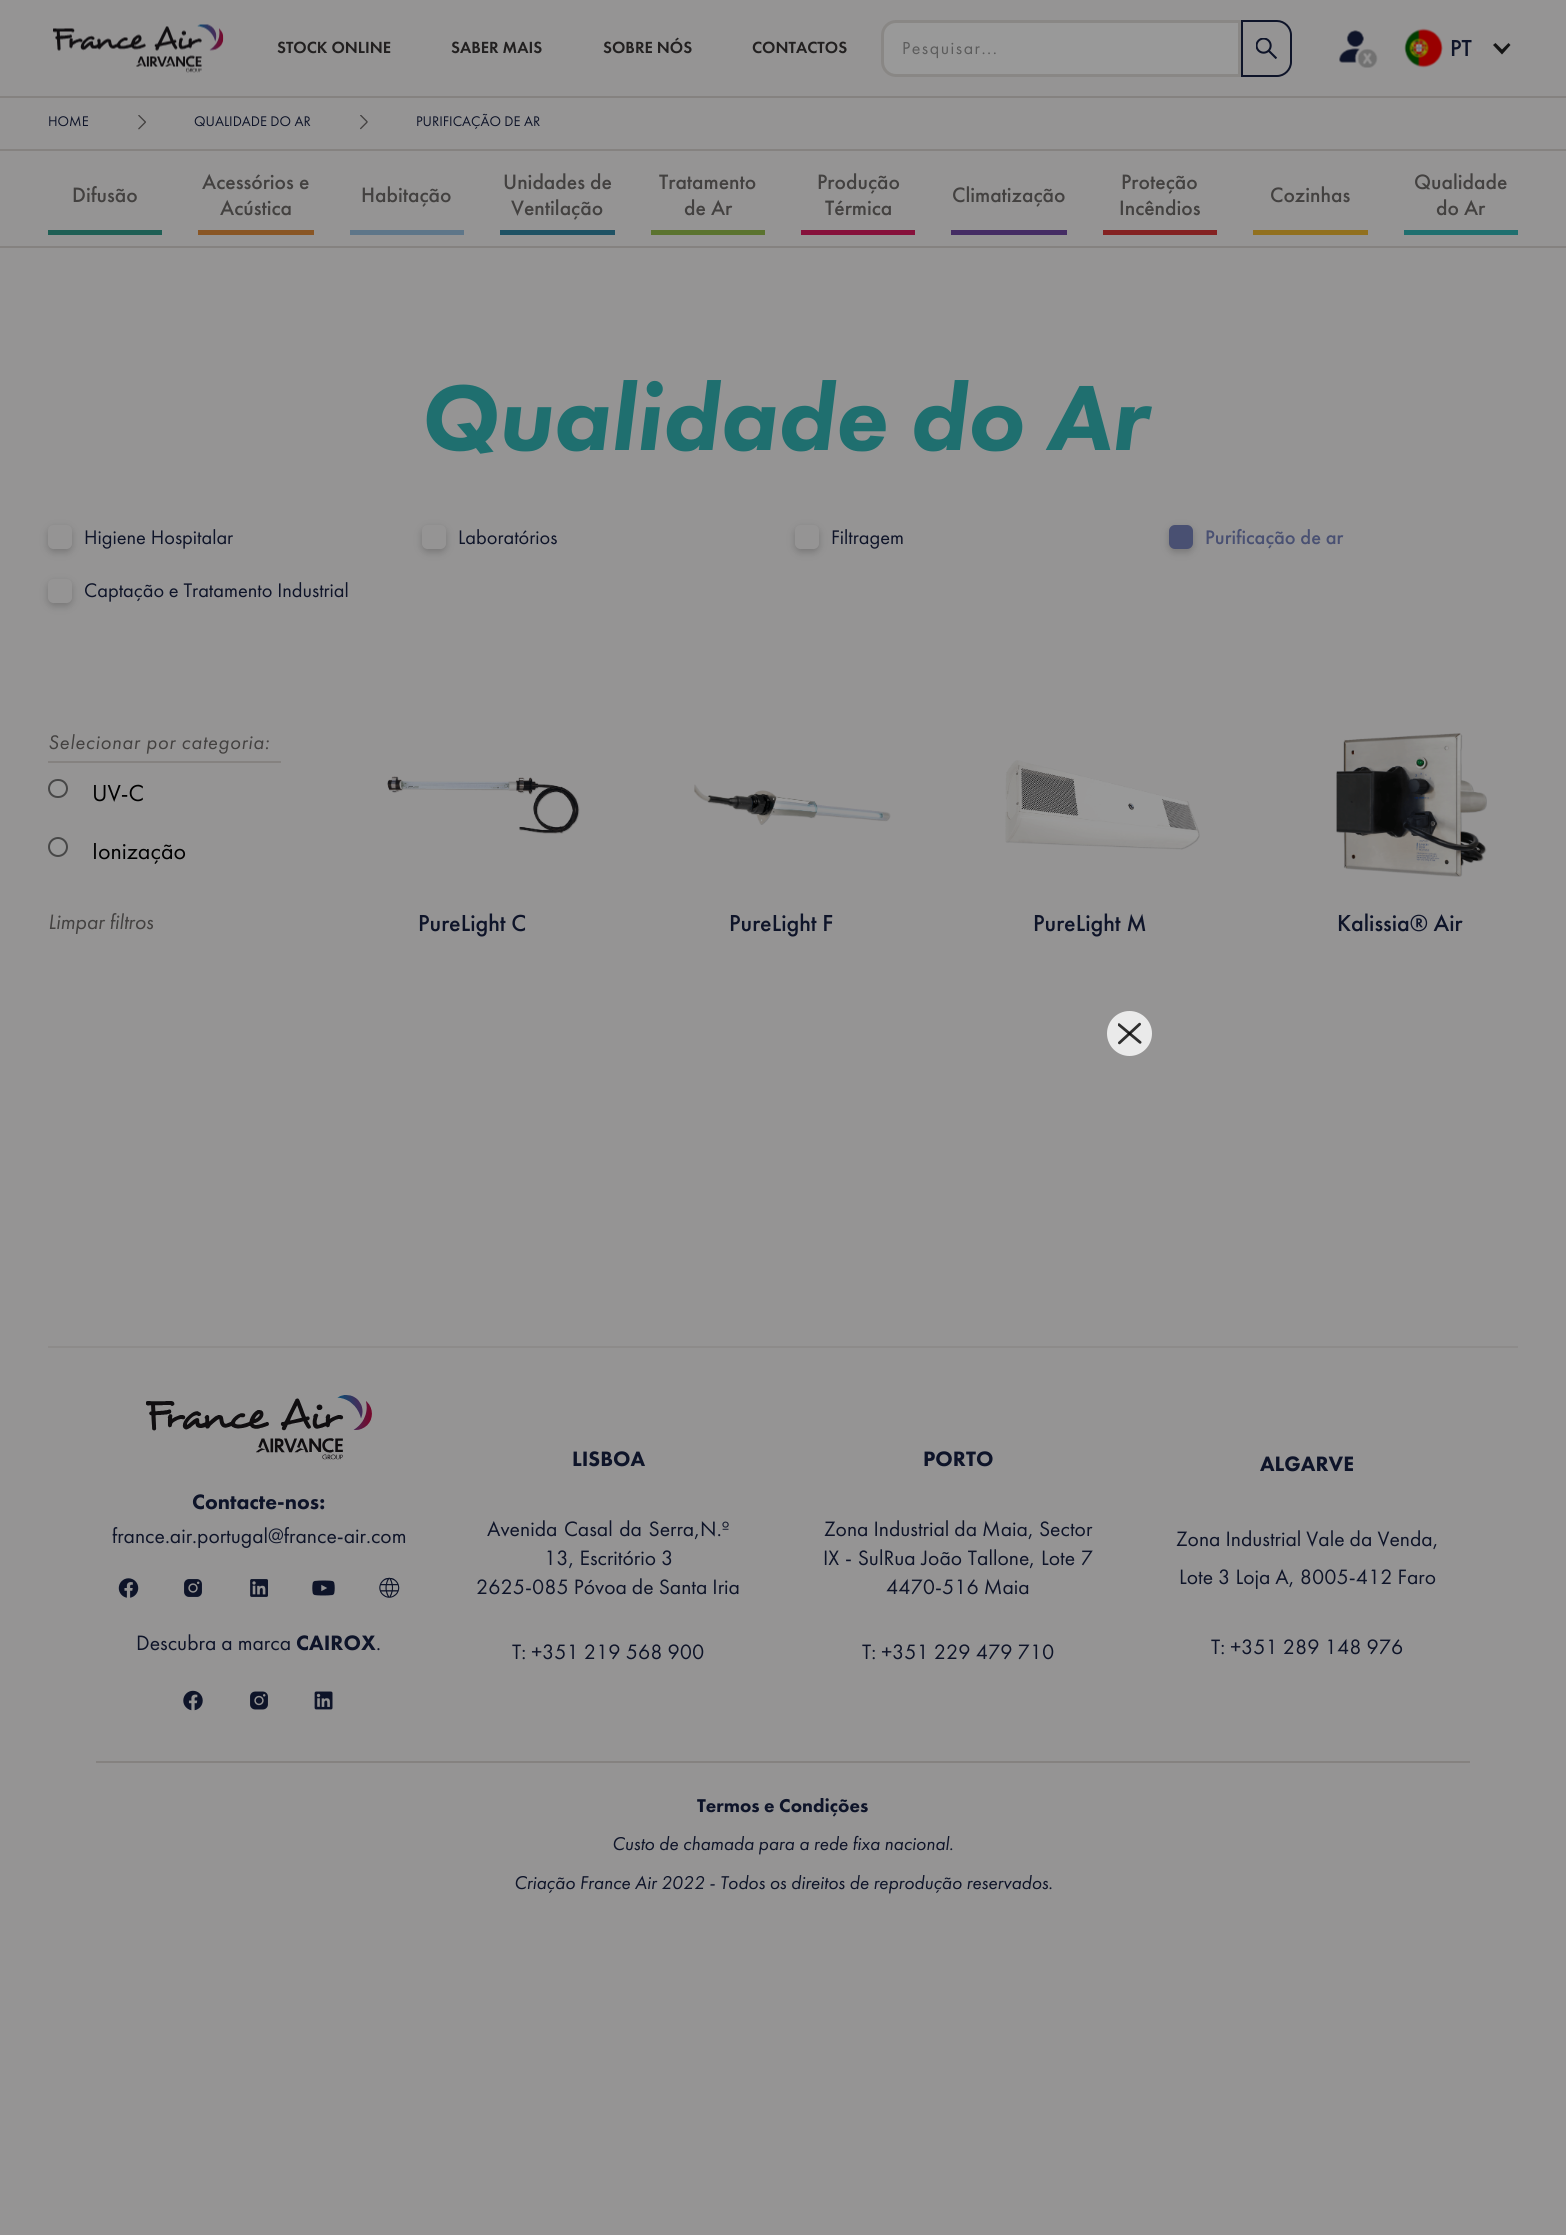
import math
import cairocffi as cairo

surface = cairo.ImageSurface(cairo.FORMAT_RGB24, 1566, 2235)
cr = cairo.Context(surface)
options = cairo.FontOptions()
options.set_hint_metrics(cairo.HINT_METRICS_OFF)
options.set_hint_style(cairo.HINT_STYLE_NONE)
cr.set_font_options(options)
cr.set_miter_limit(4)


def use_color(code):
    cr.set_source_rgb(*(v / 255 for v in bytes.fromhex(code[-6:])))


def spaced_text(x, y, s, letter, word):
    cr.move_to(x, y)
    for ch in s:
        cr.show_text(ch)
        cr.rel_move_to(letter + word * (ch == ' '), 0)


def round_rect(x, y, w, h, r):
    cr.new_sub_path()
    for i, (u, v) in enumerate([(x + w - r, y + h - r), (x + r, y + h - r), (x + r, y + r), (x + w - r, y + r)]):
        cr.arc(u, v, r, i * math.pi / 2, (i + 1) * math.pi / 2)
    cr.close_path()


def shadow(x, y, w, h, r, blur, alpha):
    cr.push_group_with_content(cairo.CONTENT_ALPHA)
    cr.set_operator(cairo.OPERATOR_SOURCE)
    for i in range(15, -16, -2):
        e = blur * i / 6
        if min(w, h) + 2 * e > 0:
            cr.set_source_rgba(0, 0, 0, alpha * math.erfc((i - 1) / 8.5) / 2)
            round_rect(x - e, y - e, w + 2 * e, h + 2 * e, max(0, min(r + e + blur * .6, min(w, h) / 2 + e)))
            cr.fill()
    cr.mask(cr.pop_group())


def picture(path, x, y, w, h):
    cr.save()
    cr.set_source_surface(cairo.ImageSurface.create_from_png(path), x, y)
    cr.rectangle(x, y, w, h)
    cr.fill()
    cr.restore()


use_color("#959494")
cr.paint()
picture("img1.png", 53, 24, 171, 49)
cr.select_font_face("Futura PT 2 Medium")
cr.set_font_size(16.75)
use_color("#222020")
cr.move_to(277, 53)
cr.show_text("STOCK ONLINE")
cr.move_to(451, 53)
cr.show_text("SABER MAIS")
cr.move_to(603, 53)
cr.show_text("SOBRE NÓS")
cr.move_to(752, 53)
cr.show_text("CONTACTOS")
use_color("#999999")
cr.new_path()
cr.move_to(896, 21.5)
cr.line_to(1239.5, 21.5)
cr.line_to(1239.5, 75.5)
cr.line_to(896, 75.5)
cr.curve_to(888.5, 75.5, 882.5, 69.5, 882.5, 62)
cr.line_to(882.5, 35)
cr.curve_to(882.5, 27.5, 888.5, 21.5, 896, 21.5)
cr.close_path()
cr.fill_preserve()
use_color("#898785")
cr.set_line_width(3)
cr.stroke()
cr.select_font_face("Futura PT")
cr.set_font_size(18)
use_color("#5c5c5c")
spaced_text(902, 54, "Pesquisar...", 1.5, 0)
picture("img2.png", 1256, 38, 21, 21)
cr.new_path()
cr.move_to(1242, 21)
cr.line_to(1277, 21)
cr.curve_to(1284.5, 21, 1291, 27.5, 1291, 35)
cr.line_to(1291, 62)
cr.curve_to(1291, 69.5, 1284.5, 76, 1277, 76)
cr.line_to(1242, 76)
cr.close_path()
use_color("#0e1429")
cr.set_line_width(2)
cr.stroke()
picture("img3.png", 1339, 30, 39, 38)
picture("img4.png", 1404, 28, 39, 40)
cr.select_font_face("Futura PT Medium")
cr.set_font_size(24)
cr.move_to(1450, 56)
cr.show_text("PT")
use_color("#141414")
cr.new_path()
cr.move_to(1508.5, 43)
cr.line_to(1502, 49.5)
cr.line_to(1495.5, 43)
cr.line_to(1493, 45)
cr.line_to(1502, 54.5)
cr.line_to(1510.5, 45)
cr.close_path()
cr.fill()
use_color("#858280")
cr.rectangle(0, 96, 1566, 2)
cr.fill()
cr.select_font_face("Futura PT")
cr.set_font_size(14.5)
use_color("#0e1429")
cr.move_to(48, 126)
cr.show_text("HOME")
picture("img5.png", 138, 115, 8, 15)
cr.move_to(194, 126)
cr.show_text("QUALIDADE DO AR")
picture("img6.png", 360, 115, 8, 15)
cr.move_to(416, 126)
cr.show_text("PURIFICAÇÃO DE AR")
use_color("#858280")
cr.rectangle(0, 149, 1566, 2)
cr.fill()
cr.rectangle(0, 246, 1566, 2)
cr.fill()
use_color("#1f5f55")
cr.rectangle(48, 230, 114, 5)
cr.fill()
cr.select_font_face("Futura PT Medium")
cr.set_font_size(21.6)
use_color("#434140")
cr.move_to(72, 202)
cr.show_text("Difusão")
use_color("#895625")
cr.rectangle(198, 230, 116, 5)
cr.fill()
use_color("#434140")
cr.move_to(202, 189)
cr.show_text("Acessórios e")
cr.move_to(220, 215)
cr.show_text("Acústica")
use_color("#5e7689")
cr.rectangle(350, 230, 114, 5)
cr.fill()
use_color("#434140")
cr.move_to(361, 202)
cr.show_text("Habitação")
use_color("#1f5264")
cr.rectangle(500, 230, 115, 5)
cr.fill()
use_color("#434140")
cr.move_to(503, 189)
cr.show_text("Unidades de")
cr.move_to(511, 215)
cr.show_text("Ventilação")
use_color("#5b732f")
cr.rectangle(651, 230, 114, 5)
cr.fill()
use_color("#434140")
cr.move_to(659, 189)
cr.show_text("Tratamento")
cr.move_to(684, 215)
cr.show_text("de Ar")
use_color("#86113b")
cr.rectangle(801, 230, 114, 5)
cr.fill()
use_color("#434140")
cr.move_to(817, 189)
cr.show_text("Produção")
cr.move_to(825, 215)
cr.show_text("Térmica")
use_color("#452d64")
cr.rectangle(951, 230, 116, 5)
cr.fill()
use_color("#434140")
cr.move_to(952, 202)
cr.show_text("Climatização")
use_color("#842222")
cr.rectangle(1103, 230, 114, 5)
cr.fill()
use_color("#434140")
cr.move_to(1121, 189)
cr.show_text("Proteção")
cr.move_to(1119, 215)
cr.show_text("Incêndios")
use_color("#91701f")
cr.rectangle(1253, 230, 115, 5)
cr.fill()
use_color("#434140")
cr.move_to(1270, 202)
cr.show_text("Cozinhas")
use_color("#1f6f6f")
cr.rectangle(1404, 230, 114, 5)
cr.fill()
use_color("#434140")
cr.move_to(1414, 189)
cr.show_text("Qualidade")
cr.move_to(1436, 215)
cr.show_text("do Ar")
cr.select_font_face("Futura PT Black", cairo.FONT_SLANT_ITALIC)
cr.set_font_size(96)
use_color("#1f6f6f")
cr.move_to(419, 450)
cr.show_text("Qualidade do Ar")
cr.save()
cr.set_fill_rule(cairo.FILL_RULE_EVEN_ODD)
cr.new_path()
cr.move_to(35, 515)
cr.line_to(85, 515)
cr.line_to(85, 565)
cr.line_to(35, 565)
cr.close_path()
cr.move_to(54, 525)
cr.line_to(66, 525)
cr.curve_to(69.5, 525, 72, 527.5, 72, 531)
cr.line_to(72, 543)
cr.curve_to(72, 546.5, 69.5, 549, 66, 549)
cr.line_to(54, 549)
cr.curve_to(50.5, 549, 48, 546.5, 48, 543)
cr.line_to(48, 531)
cr.curve_to(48, 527.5, 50.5, 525, 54, 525)
cr.close_path()
cr.clip()
use_color("#000000")
shadow(48, 528, 24, 24, 6, 4, 0.2)
cr.restore()
cr.select_font_face("Futura PT")
cr.set_font_size(20.4)
use_color("#0e1429")
cr.move_to(84, 544)
cr.show_text("Higiene Hospitalar")
cr.save()
cr.set_fill_rule(cairo.FILL_RULE_EVEN_ODD)
cr.new_path()
cr.move_to(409, 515)
cr.line_to(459, 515)
cr.line_to(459, 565)
cr.line_to(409, 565)
cr.close_path()
cr.move_to(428, 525)
cr.line_to(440, 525)
cr.curve_to(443.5, 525, 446, 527.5, 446, 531)
cr.line_to(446, 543)
cr.curve_to(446, 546.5, 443.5, 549, 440, 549)
cr.line_to(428, 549)
cr.curve_to(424.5, 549, 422, 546.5, 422, 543)
cr.line_to(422, 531)
cr.curve_to(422, 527.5, 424.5, 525, 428, 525)
cr.close_path()
cr.clip()
use_color("#000000")
shadow(422, 528, 24, 24, 6, 4, 0.2)
cr.restore()
cr.move_to(458, 544)
cr.show_text("Laboratórios")
cr.save()
cr.set_fill_rule(cairo.FILL_RULE_EVEN_ODD)
cr.new_path()
cr.move_to(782, 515)
cr.line_to(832, 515)
cr.line_to(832, 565)
cr.line_to(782, 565)
cr.close_path()
cr.move_to(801, 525)
cr.line_to(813, 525)
cr.curve_to(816.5, 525, 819, 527.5, 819, 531)
cr.line_to(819, 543)
cr.curve_to(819, 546.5, 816.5, 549, 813, 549)
cr.line_to(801, 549)
cr.curve_to(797.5, 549, 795, 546.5, 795, 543)
cr.line_to(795, 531)
cr.curve_to(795, 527.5, 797.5, 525, 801, 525)
cr.close_path()
cr.clip()
use_color("#000000")
shadow(795, 528, 24, 24, 6, 4, 0.2)
cr.restore()
cr.move_to(831, 544)
cr.show_text("Filtragem")
use_color("#000000")
shadow(1169, 528, 24, 24, 6, 4, 0.2)
use_color("#495072")
round_rect(1169, 525, 24, 24, 6)
cr.fill()
cr.select_font_face("Futura PT Medium")
cr.move_to(1205, 544)
cr.show_text("Purificação de ar")
cr.save()
cr.set_fill_rule(cairo.FILL_RULE_EVEN_ODD)
cr.new_path()
cr.move_to(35, 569)
cr.line_to(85, 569)
cr.line_to(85, 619)
cr.line_to(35, 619)
cr.close_path()
cr.move_to(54, 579)
cr.line_to(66, 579)
cr.curve_to(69.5, 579, 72, 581.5, 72, 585)
cr.line_to(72, 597)
cr.curve_to(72, 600.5, 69.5, 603, 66, 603)
cr.line_to(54, 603)
cr.curve_to(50.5, 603, 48, 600.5, 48, 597)
cr.line_to(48, 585)
cr.curve_to(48, 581.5, 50.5, 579, 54, 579)
cr.close_path()
cr.clip()
use_color("#000000")
shadow(48, 582, 24, 24, 6, 4, 0.2)
cr.restore()
cr.select_font_face("Futura PT")
use_color("#0e1429")
cr.move_to(84, 597)
cr.show_text("Captação e Tratamento Industrial")
use_color("#858280")
cr.rectangle(48, 761, 233, 2)
cr.fill()
cr.select_font_face("Futura PT", cairo.FONT_SLANT_ITALIC)
use_color("#434140")
spaced_text(48, 749, "Selecionar por categoria:", 0.75, 0)
use_color("#999999")
round_rect(49, 780, 18, 17, 8.5)
cr.fill_preserve()
use_color("#474747")
cr.stroke()
cr.select_font_face("Futura PT")
cr.set_font_size(24)
use_color("#000000")
cr.move_to(92, 801)
cr.show_text("UV-C")
use_color("#999999")
cr.new_path()
cr.arc(58, 847, 9, 0, 2 * math.pi)
cr.fill_preserve()
use_color("#474747")
cr.stroke()
use_color("#000000")
cr.move_to(92, 859)
cr.show_text("Ionização")
cr.select_font_face("Futura PT", cairo.FONT_SLANT_ITALIC)
cr.set_font_size(21.6)
use_color("#434140")
cr.move_to(48, 929)
cr.show_text("Limpar filtros")
picture("img7.png", 387, 776, 193, 58)
cr.select_font_face("Futura PT Medium")
cr.set_font_size(24)
use_color("#0e1429")
cr.move_to(418, 931)
cr.show_text("PureLight C")
picture("img8.png", 694, 784, 197, 41)
cr.move_to(729, 931)
cr.show_text("PureLight F")
picture("img9.png", 1005, 760, 195, 90)
cr.move_to(1033, 931)
cr.show_text("PureLight M")
picture("img10.png", 1336, 733, 151, 144)
cr.move_to(1337, 931)
cr.show_text("Kalissia® Air")
use_color("#8d8b8a")
cr.rectangle(48, 1346, 1470, 2)
cr.fill()
picture("img11.png", 146, 1395, 226, 65)
cr.select_font_face("Futura PT Black")
cr.set_font_size(21.6)
use_color("#0e1429")
cr.move_to(192, 1509)
cr.show_text("Contacte-nos:")
cr.select_font_face("Futura PT")
cr.move_to(112, 1543)
cr.show_text("france.air.portugal@france-air.com")
picture("img12.png", 118, 1578, 21, 20)
picture("img13.png", 184, 1579, 18, 18)
picture("img14.png", 250, 1579, 18, 18)
picture("img15.png", 312, 1580, 23, 16)
picture("img16.png", 379, 1577, 21, 21)
cr.move_to(136, 1650)
cr.show_text("Descubra a marca")
cr.select_font_face("Futura PT Black")
cr.move_to(296, 1650)
cr.show_text("CAIROX")
cr.select_font_face("Futura PT")
cr.move_to(376, 1650)
cr.show_text(".")
picture("img17.png", 183, 1690, 20, 21)
picture("img18.png", 250, 1691, 18, 19)
picture("img19.png", 314, 1691, 19, 19)
cr.select_font_face("Futura PT Black")
cr.move_to(572, 1466)
cr.show_text("LISBOA")
cr.select_font_face("Futura PT")
spaced_text(487, 1536, "Avenida Casal da Serra,N.º", 0, 1.5)
cr.move_to(544, 1565)
cr.show_text("13, Escritório 3")
cr.move_to(476, 1594)
cr.show_text("2625-085 Póvoa de Santa Iria")
cr.move_to(512, 1659)
cr.show_text("T: +351 219 568 900")
cr.select_font_face("Futura PT Black")
cr.move_to(923, 1466)
cr.show_text("PORTO")
cr.select_font_face("Futura PT")
cr.move_to(824, 1536)
cr.show_text("Zona Industrial da Maia, Sector")
spaced_text(823, 1565, "IX - SulRua João Tallone, Lote 7", 0, 0.75)
cr.move_to(886, 1594)
cr.show_text("4470-516 Maia")
cr.move_to(862, 1659)
cr.show_text("T: +351 229 479 710")
cr.select_font_face("Futura PT Black")
cr.move_to(1260, 1471)
cr.show_text("ALGARVE")
cr.select_font_face("Futura PT")
cr.move_to(1176, 1546)
cr.show_text("Zona Industrial Vale da Venda,")
cr.move_to(1179, 1584)
cr.show_text("Lote 3 Loja A, 8005-412 Faro")
cr.move_to(1211, 1654)
cr.show_text("T: +351 289 148 976")
use_color("#858280")
cr.rectangle(96, 1761, 1374, 2)
cr.fill()
cr.select_font_face("Futura PT Black")
cr.set_font_size(19.2)
use_color("#0e1429")
cr.move_to(697, 1812)
cr.show_text("Termos e Condições")
cr.select_font_face("Futura PT", cairo.FONT_SLANT_ITALIC)
cr.move_to(612, 1850)
cr.show_text("Custo de chamada para a rede fixa nacional.")
cr.move_to(514, 1889)
cr.show_text("Criação France Air 2022 - Todos os direitos de reprodução reservados.")
use_color("#eaeaea")
cr.new_path()
cr.arc(1129.5, 1033.5, 22.5, 0, 2 * math.pi)
cr.fill()
picture("img20.png", 1118, 1022, 24, 23)
surface.write_to_png("result.png")
